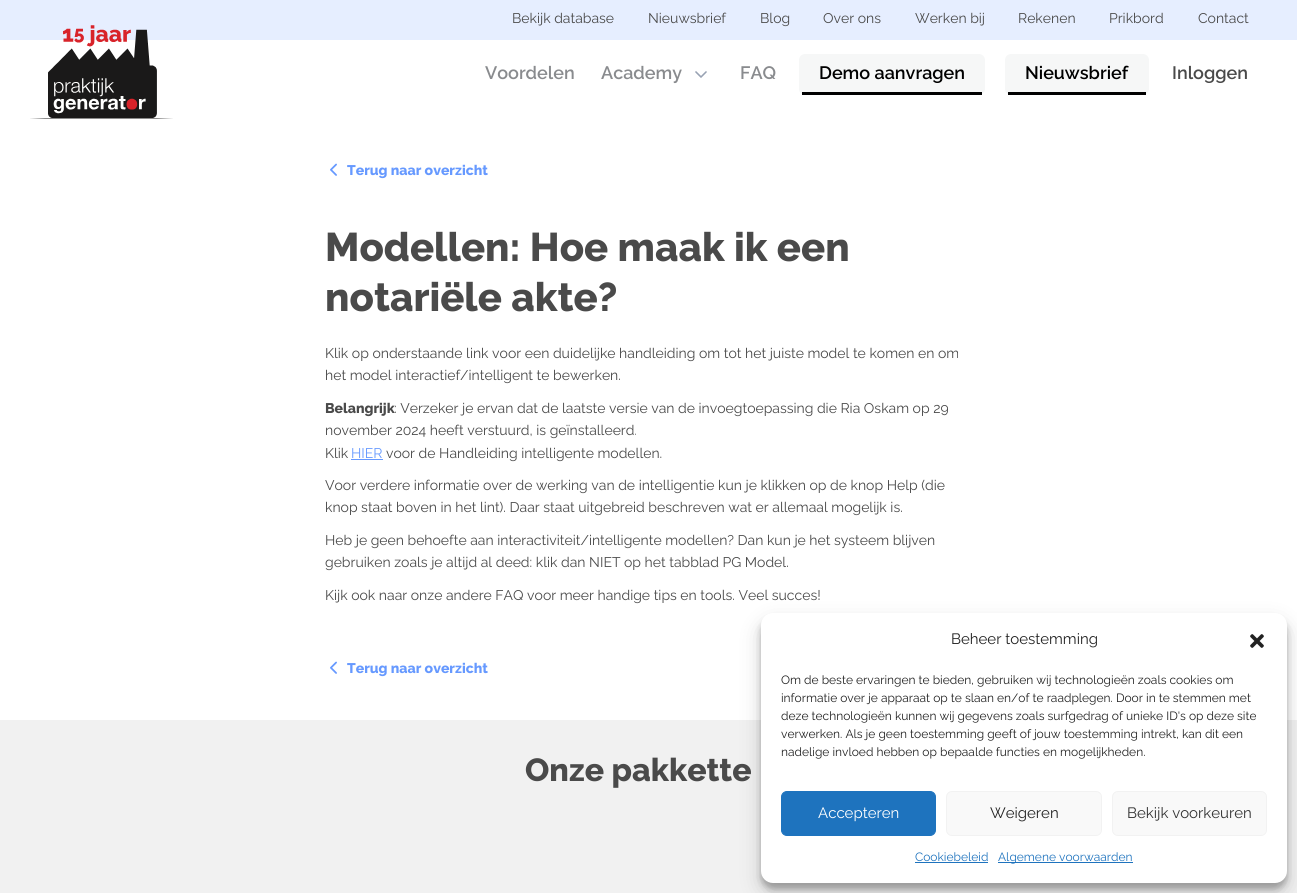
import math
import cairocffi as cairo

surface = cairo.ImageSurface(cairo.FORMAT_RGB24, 1297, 893)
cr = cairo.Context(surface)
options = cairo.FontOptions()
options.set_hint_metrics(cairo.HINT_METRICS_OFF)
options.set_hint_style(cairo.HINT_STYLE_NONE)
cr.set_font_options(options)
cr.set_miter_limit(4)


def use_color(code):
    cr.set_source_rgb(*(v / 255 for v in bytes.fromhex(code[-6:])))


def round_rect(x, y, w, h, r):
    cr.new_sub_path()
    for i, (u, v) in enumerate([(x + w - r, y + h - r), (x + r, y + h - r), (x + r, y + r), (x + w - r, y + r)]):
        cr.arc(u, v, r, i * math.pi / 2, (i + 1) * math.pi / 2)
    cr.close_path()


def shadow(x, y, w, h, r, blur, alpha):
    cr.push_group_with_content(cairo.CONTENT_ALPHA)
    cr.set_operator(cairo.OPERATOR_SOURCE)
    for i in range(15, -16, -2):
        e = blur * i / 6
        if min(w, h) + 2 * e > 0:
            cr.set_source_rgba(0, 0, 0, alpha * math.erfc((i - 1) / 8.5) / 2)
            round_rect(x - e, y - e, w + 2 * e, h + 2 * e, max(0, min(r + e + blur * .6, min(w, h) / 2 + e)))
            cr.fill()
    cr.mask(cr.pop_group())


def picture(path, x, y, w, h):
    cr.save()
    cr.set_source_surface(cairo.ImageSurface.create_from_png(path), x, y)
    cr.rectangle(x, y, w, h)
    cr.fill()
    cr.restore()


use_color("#ffffff")
cr.paint()
use_color("#e6eeff")
cr.rectangle(0, 0, 1297, 40)
cr.fill()
cr.select_font_face("Raleway")
cr.set_font_size(14)
use_color("#4a4a4a")
cr.move_to(512, 23)
cr.show_text("Bekijk database")
cr.move_to(648, 23)
cr.show_text("Nieuwsbrief")
cr.move_to(760, 23)
cr.show_text("Blog")
cr.move_to(823, 23)
cr.show_text("Over ons")
cr.move_to(915, 23)
cr.show_text("Werken bij")
cr.move_to(1018, 23)
cr.show_text("Rekenen")
cr.move_to(1109, 23)
cr.show_text("Prikbord")
cr.move_to(1198, 23)
cr.show_text("Contact")
picture("img1.png", 30, 25, 143, 94)
cr.select_font_face("Raleway SemiBold")
cr.set_font_size(18)
use_color("#898b8e")
cr.move_to(485, 79)
cr.show_text("Voordelen")
cr.move_to(601, 79)
cr.show_text("Academy")
picture("img2.png", 695, 71, 12, 7)
cr.move_to(740, 79)
cr.show_text("FAQ")
use_color("#f6f7f7")
round_rect(799, 54, 186, 41, 6)
cr.fill()
use_color("#000000")
cr.rectangle(802, 92, 180, 3)
cr.fill()
cr.move_to(819, 79)
cr.show_text("Demo aanvragen")
use_color("#f6f7f7")
round_rect(1005, 54, 144, 41, 6)
cr.fill()
use_color("#000000")
cr.rectangle(1008, 92, 138, 3)
cr.fill()
cr.move_to(1025, 79)
cr.show_text("Nieuwsbrief")
use_color("#4a4a4a")
cr.move_to(1172, 79)
cr.show_text("Inloggen")
picture("img3.png", 330, 163, 7, 13)
cr.select_font_face("Raleway ExtraBold")
cr.set_font_size(14)
use_color("#6699ff")
cr.move_to(347, 175)
cr.show_text("Terug naar overzicht")
cr.set_font_size(40)
use_color("#4a4a4a")
cr.move_to(325, 261)
cr.show_text("Modellen: Hoe maak ik een")
cr.move_to(325, 311)
cr.show_text("notariële akte?")
cr.select_font_face("Raleway")
cr.set_font_size(14)
cr.move_to(325, 358)
cr.show_text("Klik op onderstaande link voor een duidelijke handleiding om tot het juiste model te komen en om")
cr.move_to(325, 380)
cr.show_text("het model interactief/intelligent te bewerken.")
cr.select_font_face("Raleway ExtraBold")
cr.move_to(325, 413)
cr.show_text("Belangrijk")
cr.select_font_face("Raleway")
cr.move_to(394, 413)
cr.show_text(": Verzeker je ervan dat de laatste versie van de invoegtoepassing die Ria Oskam op 29")
cr.move_to(325, 435)
cr.show_text("november 2024 heeft verstuurd, is geïnstalleerd.")
cr.move_to(325, 458)
cr.show_text("Klik")
use_color("#6699ff")
cr.move_to(351, 458)
cr.show_text("HIER")
cr.rectangle(351, 459, 32, 1)
cr.fill()
use_color("#4a4a4a")
cr.move_to(386, 458)
cr.show_text("voor de Handleiding intelligente modellen.")
cr.move_to(325, 490)
cr.show_text("Voor verdere informatie over de werking van de intelligentie kun je klikken op de knop Help (die")
cr.move_to(325, 512)
cr.show_text("knop staat boven in het lint). Daar staat uitgebreid beschreven wat er allemaal mogelijk is.")
cr.move_to(325, 545)
cr.show_text("Heb je geen behoefte aan interactiviteit/intelligente modellen? Dan kun je het systeem blijven")
cr.move_to(325, 567)
cr.show_text("gebruiken zoals je altijd al deed: klik dan NIET op het tabblad PG Model.")
cr.move_to(325, 600)
cr.show_text("Kijk ook naar onze andere FAQ voor meer handige tips en tools. Veel succes!")
picture("img3.png", 330, 661, 7, 13)
cr.select_font_face("Raleway ExtraBold")
use_color("#6699ff")
cr.move_to(347, 673)
cr.show_text("Terug naar overzicht")
use_color("#f1f1f1")
cr.rectangle(0, 720, 1297, 173)
cr.fill()
cr.set_font_size(32)
use_color("#4a4a4a")
cr.move_to(525, 781)
cr.show_text("Onze pakkette")
use_color("#000000")
shadow(761, 619, 526, 270, 12, 3, 0.23)
shadow(761, 623, 526, 270, 12, 10, 0.19)
use_color("#ffffff")
round_rect(761, 613, 526, 270, 12)
cr.fill()
cr.select_font_face("Raleway")
cr.set_font_size(15)
use_color("#222222")
cr.move_to(951, 644)
cr.show_text("Beheer toestemming")
picture("img4.png", 1250, 634, 14, 14)
cr.set_font_size(12)
cr.move_to(781, 684)
cr.show_text("Om de beste ervaringen te bieden, gebruiken wij technologieën zoals cookies om")
cr.move_to(781, 702)
cr.show_text("informatie over je apparaat op te slaan en/of te raadplegen. Door in te stemmen met")
cr.move_to(781, 720)
cr.show_text("deze technologieën kunnen wij gegevens zoals surfgedrag of unieke ID's op deze site")
cr.move_to(781, 738)
cr.show_text("verwerken. Als je geen toestemming geeft of jouw toestemming intrekt, kan dit een")
cr.move_to(781, 756)
cr.show_text("nadelige invloed hebben op bepaalde functies en mogelijkheden.")
use_color("#1e73be")
round_rect(781.5, 791.5, 154, 44, 5.5)
cr.fill_preserve()
cr.set_line_width(1)
cr.stroke()
cr.set_font_size(15)
use_color("#ffffff")
cr.move_to(818, 818)
cr.show_text("Accepteren")
use_color("#f9f9f9")
round_rect(946.5, 791.5, 155, 44, 5.5)
cr.fill_preserve()
use_color("#f2f2f2")
cr.stroke()
use_color("#222222")
cr.move_to(990, 818)
cr.show_text("Weigeren")
use_color("#f9f9f9")
round_rect(1112.5, 791.5, 154, 44, 5.5)
cr.fill_preserve()
use_color("#f2f2f2")
cr.stroke()
use_color("#333333")
cr.move_to(1127, 818)
cr.show_text("Bekijk voorkeuren")
cr.set_font_size(12)
use_color("#1e73be")
cr.move_to(915, 861)
cr.show_text("Cookiebeleid")
cr.rectangle(915, 862, 73, 1)
cr.fill()
cr.rectangle(998, 862, 135, 1)
cr.fill()
cr.move_to(998, 861)
cr.show_text("Algemene voorwaarden")
surface.write_to_png("result.png")
